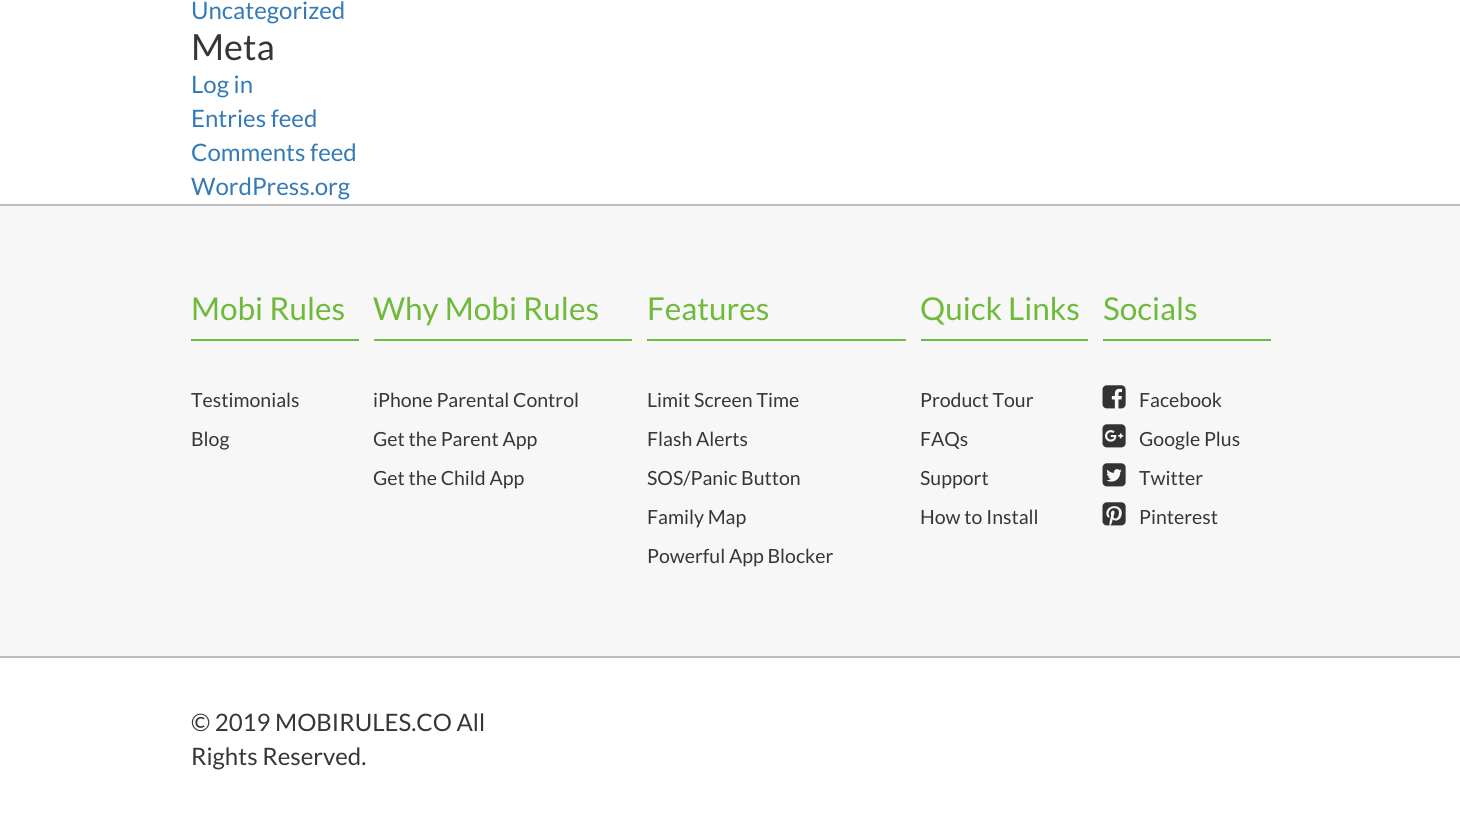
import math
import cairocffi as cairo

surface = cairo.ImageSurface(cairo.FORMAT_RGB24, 1460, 816)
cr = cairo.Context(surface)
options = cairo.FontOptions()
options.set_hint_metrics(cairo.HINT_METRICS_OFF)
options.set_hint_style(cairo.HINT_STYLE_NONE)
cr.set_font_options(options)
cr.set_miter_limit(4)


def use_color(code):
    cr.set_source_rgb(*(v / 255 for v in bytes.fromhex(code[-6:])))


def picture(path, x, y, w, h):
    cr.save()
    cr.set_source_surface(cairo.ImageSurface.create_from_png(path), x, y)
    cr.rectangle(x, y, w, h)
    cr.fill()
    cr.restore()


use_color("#ffffff")
cr.paint()
cr.select_font_face("Lato")
cr.set_font_size(24)
use_color("#337ab7")
cr.move_to(191, 19)
cr.show_text("Uncategorized")
cr.set_font_size(36)
use_color("#363636")
cr.move_to(191, 60)
cr.show_text("Meta")
cr.set_font_size(24)
use_color("#337ab7")
cr.move_to(191, 93)
cr.show_text("Log in")
cr.move_to(191, 127)
cr.show_text("Entries feed")
cr.move_to(191, 161)
cr.show_text("Comments feed")
cr.move_to(191, 195)
cr.show_text("WordPress.org")
use_color("#f7f7f7")
cr.rectangle(0, 206, 1460, 450)
cr.fill()
use_color("#bdbdbd")
cr.rectangle(0, 204, 1460, 2)
cr.fill()
use_color("#6fb93b")
cr.rectangle(191, 339, 168, 2)
cr.fill()
cr.set_font_size(31.5)
cr.move_to(191, 320)
cr.show_text("Mobi Rules")
cr.set_font_size(19.5)
use_color("#363636")
cr.move_to(191, 407)
cr.show_text("Testimonials")
cr.move_to(191, 446)
cr.show_text("Blog")
use_color("#6fb93b")
cr.rectangle(374, 339, 258, 2)
cr.fill()
cr.set_font_size(31.5)
cr.move_to(373, 320)
cr.show_text("Why Mobi Rules")
cr.set_font_size(19.5)
use_color("#363636")
cr.move_to(373, 407)
cr.show_text("iPhone Parental Control")
cr.move_to(373, 446)
cr.show_text("Get the Parent App")
cr.move_to(373, 485)
cr.show_text("Get the Child App")
use_color("#6fb93b")
cr.rectangle(647, 339, 259, 2)
cr.fill()
cr.set_font_size(31.5)
cr.move_to(647, 320)
cr.show_text("Features")
cr.set_font_size(19.5)
use_color("#363636")
cr.move_to(647, 407)
cr.show_text("Limit Screen Time")
cr.move_to(647, 446)
cr.show_text("Flash Alerts")
cr.move_to(647, 485)
cr.show_text("SOS/Panic Button")
cr.move_to(647, 524)
cr.show_text("Family Map")
cr.move_to(647, 563)
cr.show_text("Powerful App Blocker")
use_color("#6fb93b")
cr.rectangle(921, 339, 167, 2)
cr.fill()
cr.set_font_size(31.5)
cr.move_to(920, 320)
cr.show_text("Quick Links")
cr.set_font_size(19.5)
use_color("#363636")
cr.move_to(920, 407)
cr.show_text("Product Tour")
cr.move_to(920, 446)
cr.show_text("FAQs")
cr.move_to(920, 485)
cr.show_text("Support")
cr.move_to(920, 524)
cr.show_text("How to Install")
use_color("#6fb93b")
cr.rectangle(1103, 339, 168, 2)
cr.fill()
cr.set_font_size(31.5)
cr.move_to(1103, 320)
cr.show_text("Socials")
picture("img1.png", 1102, 385, 24, 24)
cr.set_font_size(19.5)
use_color("#363636")
cr.move_to(1139, 407)
cr.show_text("Facebook")
picture("img2.png", 1102, 424, 24, 24)
cr.move_to(1139, 446)
cr.show_text("Google Plus")
picture("img3.png", 1102, 463, 24, 24)
cr.move_to(1139, 485)
cr.show_text("Twitter")
picture("img4.png", 1102, 502, 24, 24)
cr.move_to(1139, 524)
cr.show_text("Pinterest")
use_color("#bdbdbd")
cr.rectangle(0, 656, 1460, 2)
cr.fill()
cr.set_font_size(24)
use_color("#363636")
cr.move_to(191, 731)
cr.show_text("© 2019 MOBIRULES.CO All")
cr.move_to(191, 765)
cr.show_text("Rights Reserved.")
surface.write_to_png("result.png")
